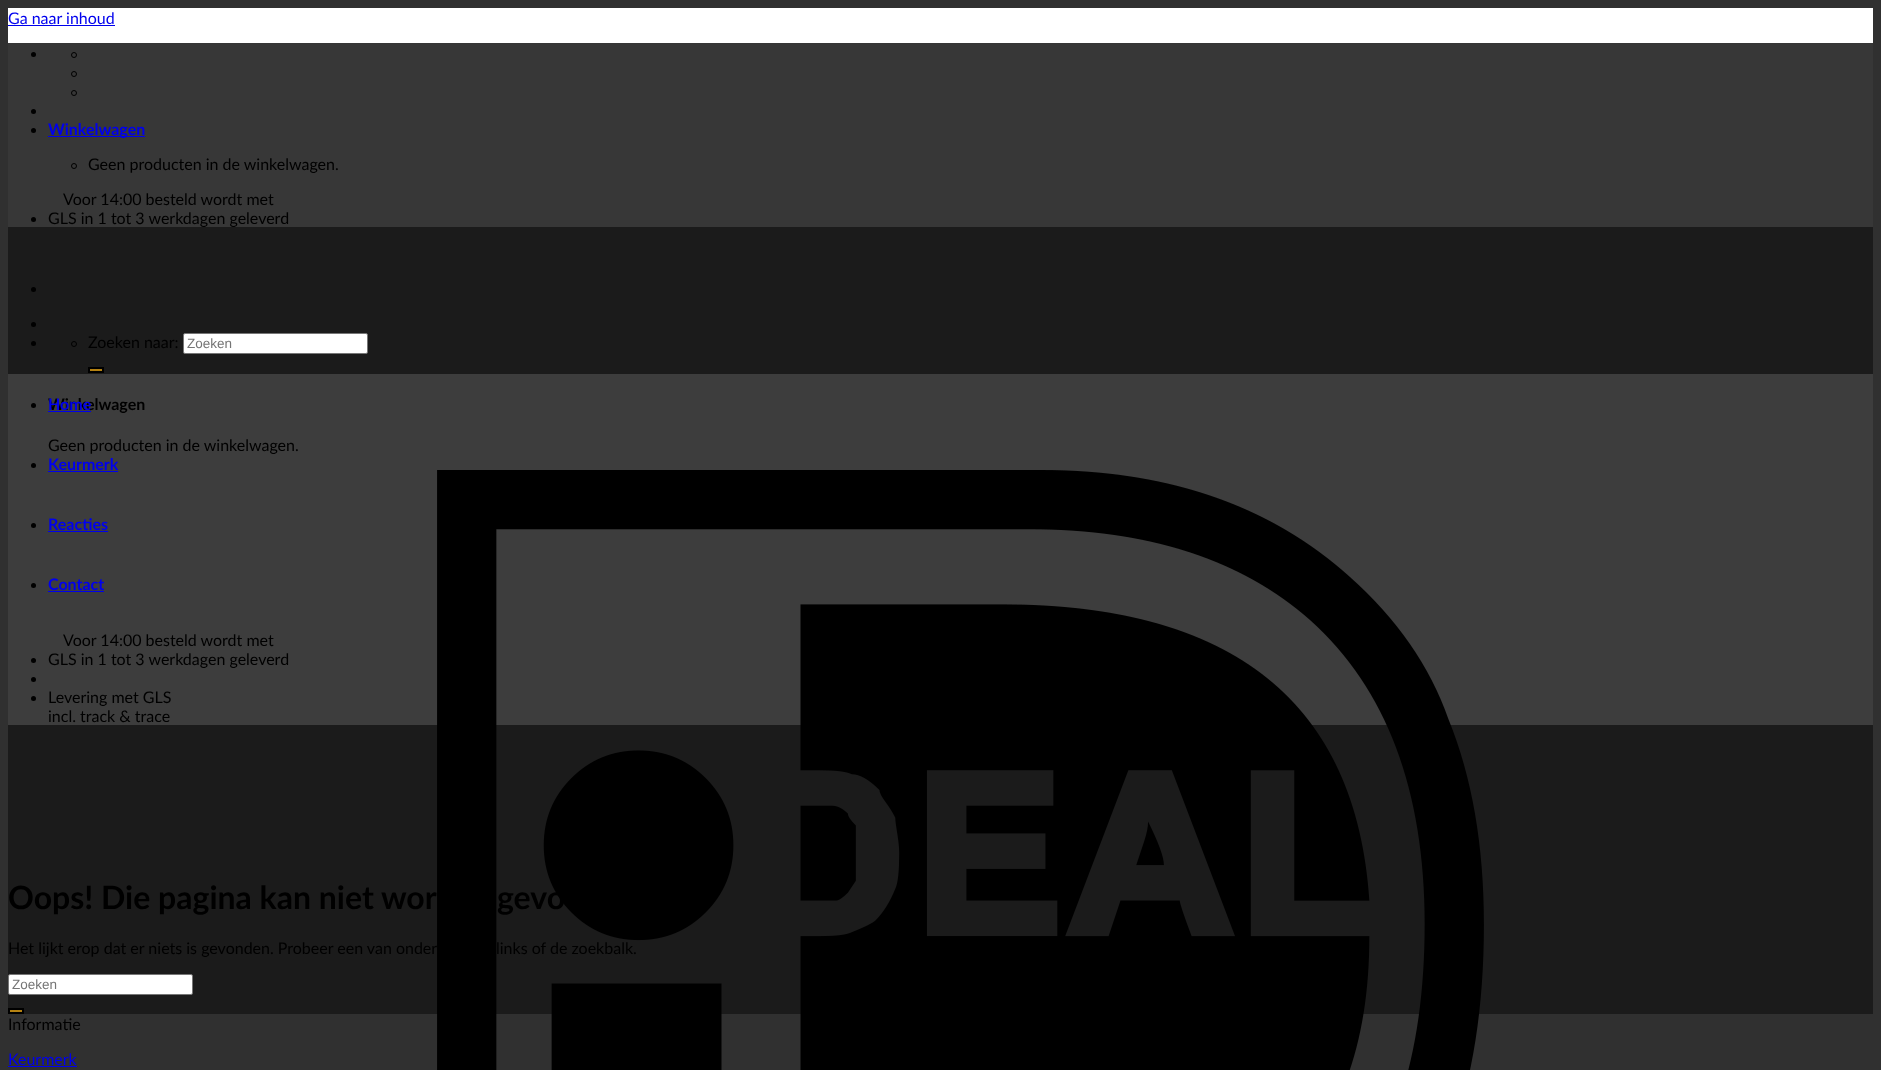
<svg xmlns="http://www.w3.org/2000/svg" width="1881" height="1070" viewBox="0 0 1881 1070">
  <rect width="100%" height="100%" fill="#303030"/>
  <rect x="8" y="8" width="1865" height="35" fill="#ffffff"/>
  <text x="8" y="24" font-family="Lato" font-size="16" fill="#0000ee">Ga naar inhoud</text>
  <rect x="8" y="25" width="107" height="1" fill="#0000ee"/>
  <rect x="8" y="227" width="1865" height="787" fill="#1b1b1b"/>
  <rect x="8" y="43" width="1865" height="184" fill="#373737"/>
  <circle cx="33.5" cy="54.5" r="2.5" fill="#000000"/>
  <circle cx="74" cy="55" r="2.5" fill="none" stroke="#000000"/>
  <circle cx="74" cy="74" r="2.5" fill="none" stroke="#000000"/>
  <circle cx="74" cy="93" r="2.5" fill="none" stroke="#000000"/>
  <circle cx="33.5" cy="111.5" r="2.5" fill="#000000"/>
  <circle cx="33.5" cy="130.5" r="2.5" fill="#000000"/>
  <rect x="48" y="136" width="97" height="1" fill="#0000ee"/>
  <text x="48" y="135" font-family="Lato" font-size="16" font-weight="bold" fill="#0000ee">Winkelwagen</text>
  <circle cx="74" cy="166" r="2.5" fill="none" stroke="#000000"/>
  <text x="88" y="170" font-family="Lato" font-size="16" fill="#000000">Geen producten in de winkelwagen.</text>
  <circle cx="33.5" cy="219.5" r="2.5" fill="#000000"/>
  <text x="63" y="205" font-family="Lato" font-size="16" fill="#000000">Voor 14:00 besteld wordt met</text>
  <text x="48" y="224" font-family="Lato" font-size="16" fill="#000000">GLS in 1 tot 3 werkdagen geleverd</text>
  <circle cx="33.5" cy="289.5" r="2.5" fill="#000000"/>
  <circle cx="33.5" cy="324.5" r="2.5" fill="#000000"/>
  <circle cx="33.5" cy="343.5" r="2.5" fill="#000000"/>
  <circle cx="74" cy="344" r="2.5" fill="none" stroke="#000000"/>
  <text x="88" y="348" font-family="Lato" font-size="16" fill="#000000">Zoeken naar:</text>
  <rect x="183.5" y="333.5" width="184" height="20" rx="1.5" fill="#ffffff" stroke="#767676"/>
  <text x="187" y="348" font-family="Liberation Sans" font-size="13.5" fill="#757575">Zoeken</text>
  <rect x="89" y="368" width="14" height="4" fill="#b58212" stroke="#000000" stroke-width="2"/>
  <rect x="8" y="374" width="1865" height="351" fill="#3d3d3d"/>
  <text x="48" y="410" font-family="Lato" font-size="16" font-weight="bold" fill="#000000">Winkelwagen</text>
  <text x="48" y="451" font-family="Lato" font-size="16" fill="#000000">Geen producten in de winkelwagen.</text>
  <text x="497" y="909" font-family="Lato" font-size="32" font-weight="bold" fill="#000000">gevo</text>
  <text x="496" y="954" font-family="Lato" font-size="16" fill="#000000">links of de zoekbalk.</text>
  <image x="437" y="470" width="1047" height="600" href="img1.png"/>
  <circle cx="33.5" cy="405.5" r="2.5" fill="#000000"/>
  <text x="48" y="410" font-family="Lato" font-size="16" font-weight="bold" fill="#0000ee">Home</text>
  <rect x="48" y="411" width="43" height="1" fill="#0000ee"/>
  <circle cx="33.5" cy="465.5" r="2.5" fill="#000000"/>
  <text x="48" y="470" font-family="Lato" font-size="16" font-weight="bold" fill="#0000ee">Keurmerk</text>
  <rect x="48" y="471" width="70" height="1" fill="#0000ee"/>
  <circle cx="33.5" cy="525.5" r="2.5" fill="#000000"/>
  <text x="48" y="530" font-family="Lato" font-size="16" font-weight="bold" fill="#0000ee">Reacties</text>
  <rect x="48" y="531" width="60" height="1" fill="#0000ee"/>
  <circle cx="33.5" cy="585.5" r="2.5" fill="#000000"/>
  <text x="48" y="590" font-family="Lato" font-size="16" font-weight="bold" fill="#0000ee">Contact</text>
  <rect x="48" y="591" width="56" height="1" fill="#0000ee"/>
  <circle cx="33.5" cy="660.5" r="2.5" fill="#000000"/>
  <text x="63" y="646" font-family="Lato" font-size="16" fill="#000000">Voor 14:00 besteld wordt met</text>
  <text x="48" y="665" font-family="Lato" font-size="16" fill="#000000">GLS in 1 tot 3 werkdagen geleverd</text>
  <circle cx="33.5" cy="679.5" r="2.5" fill="#000000"/>
  <circle cx="33.5" cy="698.5" r="2.5" fill="#000000"/>
  <text x="48" y="703" font-family="Lato" font-size="16" fill="#000000">Levering met GLS</text>
  <text x="48" y="722" font-family="Lato" font-size="16" fill="#000000">incl. track &amp; trace</text>
  <text x="8" y="909" font-family="Lato" font-size="32" font-weight="bold" fill="#000000">Oops! Die pagina kan niet wor</text>
  <text x="8" y="954" font-family="Lato" font-size="16" fill="#000000">Het lijkt erop dat er niets is gevonden. Probeer een van onder</text>
  <rect x="8.5" y="974.5" width="184" height="20" rx="1.5" fill="#ffffff" stroke="#767676"/>
  <text x="12" y="989" font-family="Liberation Sans" font-size="13.5" fill="#757575">Zoeken</text>
  <rect x="9" y="1009" width="14" height="4" fill="#b58212" stroke="#000000" stroke-width="2"/>
  <text x="8" y="1030" font-family="Lato" font-size="16" fill="#000000">Informatie</text>
  <text x="8" y="1065" font-family="Lato" font-size="16" fill="#0000ee">Keurmerk</text>
  <rect x="8" y="1066" width="69" height="1" fill="#0000ee"/>
</svg>
